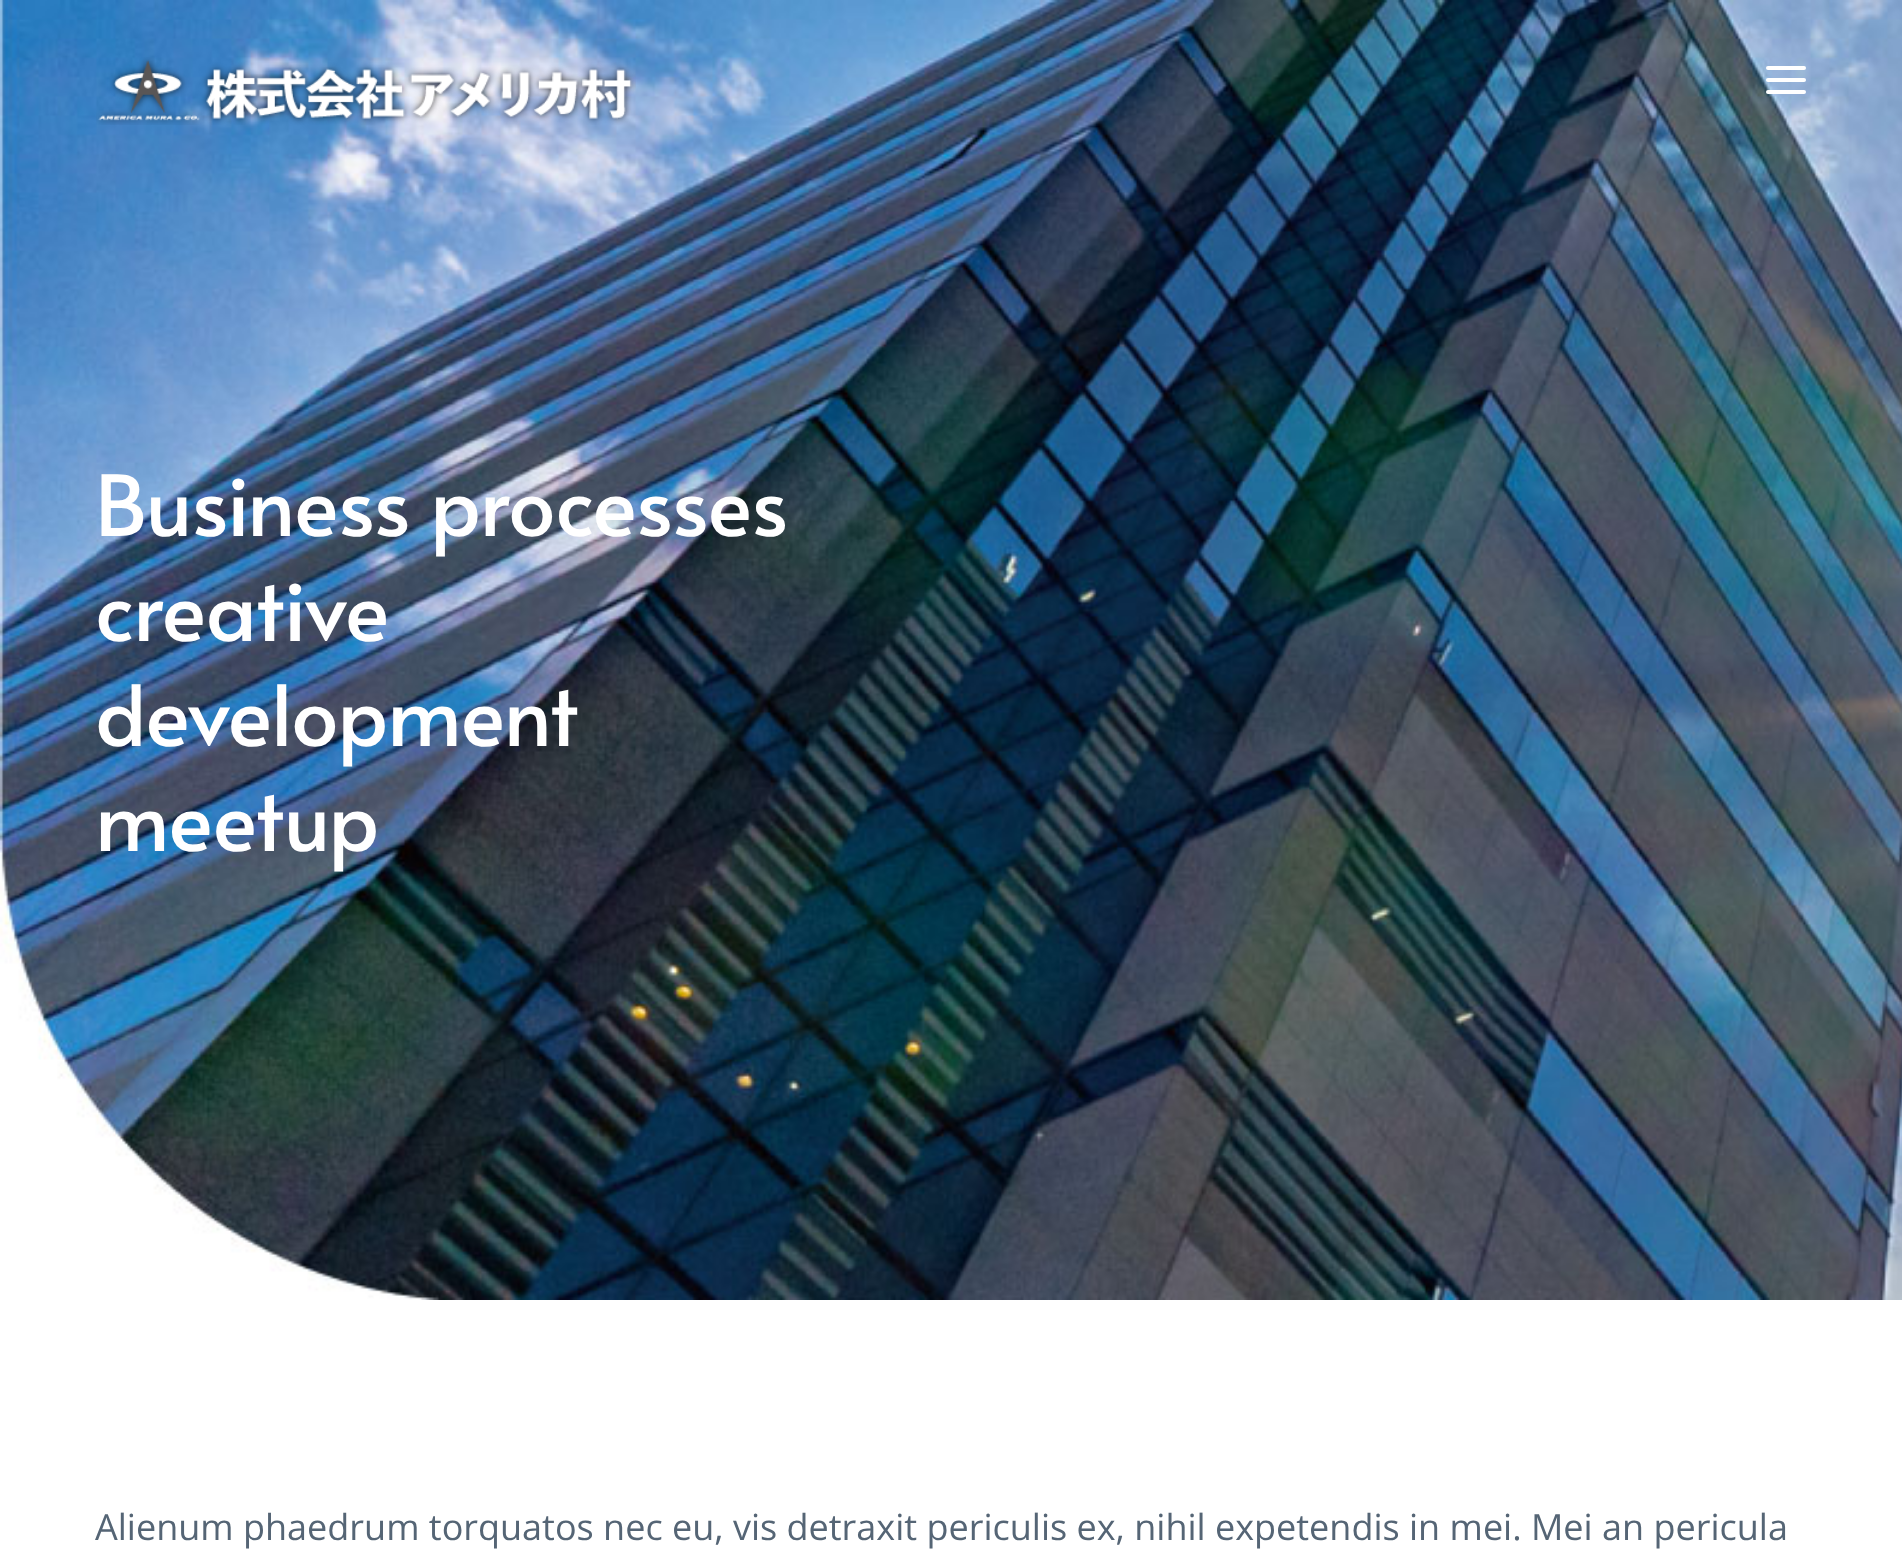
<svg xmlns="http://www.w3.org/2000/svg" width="1902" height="1565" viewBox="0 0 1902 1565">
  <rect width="100%" height="100%" fill="#ffffff"/>
  <image x="0" y="0" width="1902" height="1300" href="img2.png"/>
  <image x="96" y="57" width="540" height="68" href="img1.png"/>
  <rect x="1766" y="66" width="40" height="4" rx="2" fill="#ffffff"/>
  <rect x="1766" y="78" width="40" height="4" rx="2" fill="#ffffff"/>
  <rect x="1766" y="90" width="40" height="4" rx="2" fill="#ffffff"/>
  <text x="95" y="536" font-family="Alata" font-size="84" letter-spacing="-0.6" fill="#ffffff">Business processes</text>
  <text x="95" y="641" font-family="Alata" font-size="84" letter-spacing="-0.6" fill="#ffffff">creative</text>
  <text x="95" y="746" font-family="Alata" font-size="84" letter-spacing="-0.6" fill="#ffffff">development</text>
  <text x="95" y="851" font-family="Alata" font-size="84" letter-spacing="-0.6" fill="#ffffff">meetup</text>
  <text x="95" y="1540" font-family="Open Sans" font-size="36" fill="#556575">Alienum phaedrum torquatos nec eu, vis detraxit periculis ex, nihil expetendis in mei. Mei an pericula</text>
</svg>
